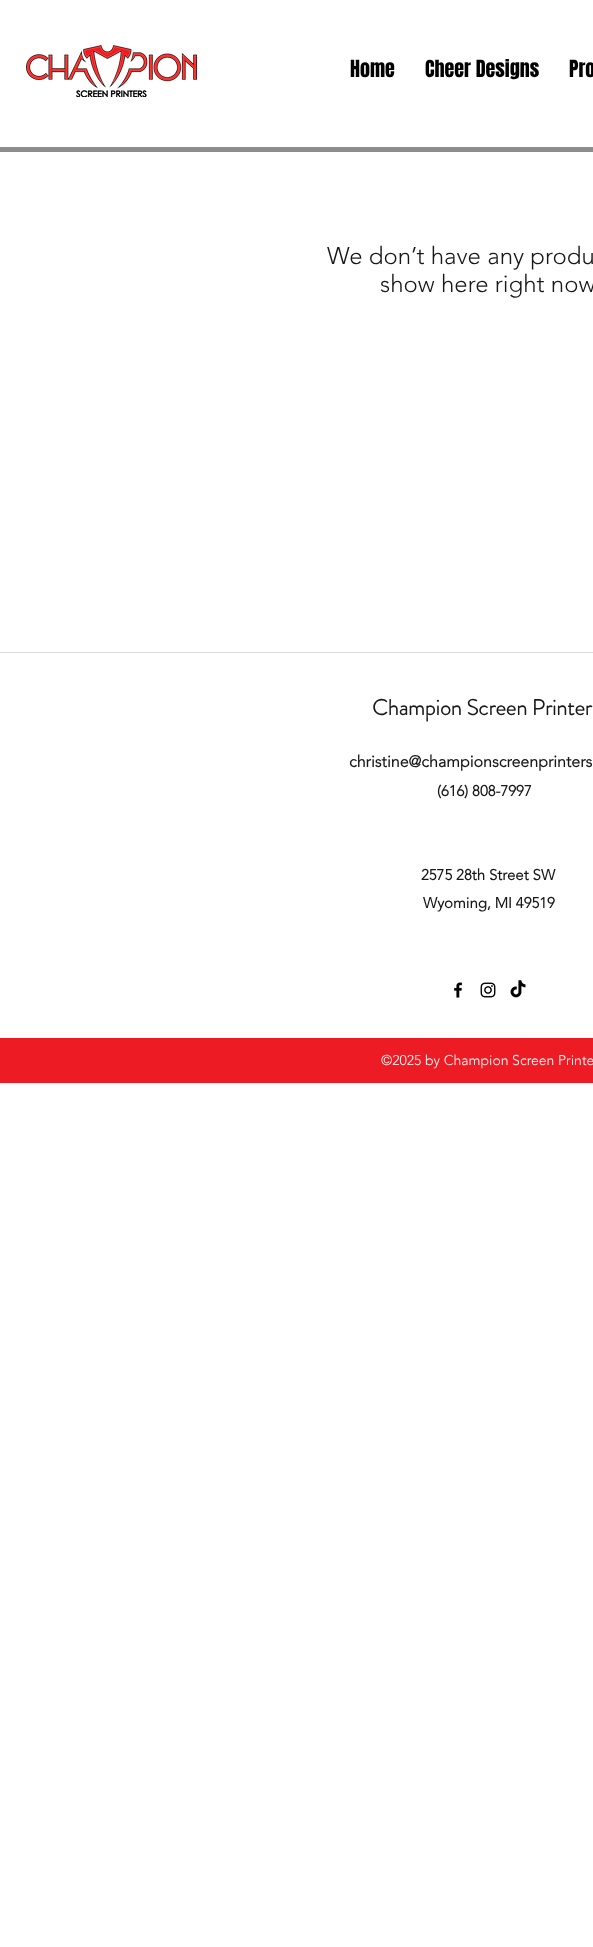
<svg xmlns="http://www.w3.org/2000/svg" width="593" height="1947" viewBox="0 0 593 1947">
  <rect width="100%" height="100%" fill="#ffffff"/>
  <image x="26" y="45" width="171" height="52" href="img1.png"/>
  <text x="350" y="77" font-family="Anton" font-size="20" fill="#000000">Home</text>
  <text x="425" y="77" font-family="Anton" font-size="20" fill="#000000">Cheer Designs</text>
  <text x="569" y="77" font-family="Anton" font-size="20" fill="#000000">Pro</text>
  <rect x="0" y="147" width="593" height="5" fill="#8c8c8c"/>
  <text x="327" y="264" font-family="'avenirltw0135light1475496'" font-size="24" font-weight="300" fill="#181818">We don’t have any produ</text>
  <text x="380" y="292" font-family="'avenirltw0135light1475496'" font-size="24" font-weight="300" fill="#181818">show here right now</text>
  <rect x="0" y="652" width="593" height="1" fill="#dcdcdc"/>
  <text x="372" y="715" font-family="'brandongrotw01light'" font-size="22" font-weight="bold" fill="#181818">Champion Screen Printer</text>
  <text x="349" y="767" font-family="'avenirltw0135light1475496'" font-size="16" font-weight="bold" fill="#181818">christine@championscreenprinters</text>
  <text x="437" y="796" font-family="'avenirltw0135light1475496'" font-size="15" font-weight="bold" fill="#181818">(616) 808-7997</text>
  <text x="421" y="880" font-family="'avenirltw0135light1475496'" font-size="15" font-weight="bold" fill="#181818">2575 28th Street SW</text>
  <text x="423" y="908" font-family="'avenirltw0135light1475496'" font-size="15" font-weight="bold" fill="#181818">Wyoming, MI 49519</text>
  <image x="454" y="982" width="9" height="16" href="img2.png"/>
  <image x="480" y="982" width="16" height="16" href="img3.png"/>
  <image x="510" y="980" width="16" height="18" href="img4.png"/>
  <rect x="0" y="1038" width="593" height="45" fill="#ed1c24"/>
  <text x="381" y="1065" font-family="'avenirltw0135light1475496'" font-size="14" font-weight="300" fill="#ffffff">©2025 by Champion Screen Printe</text>
</svg>
